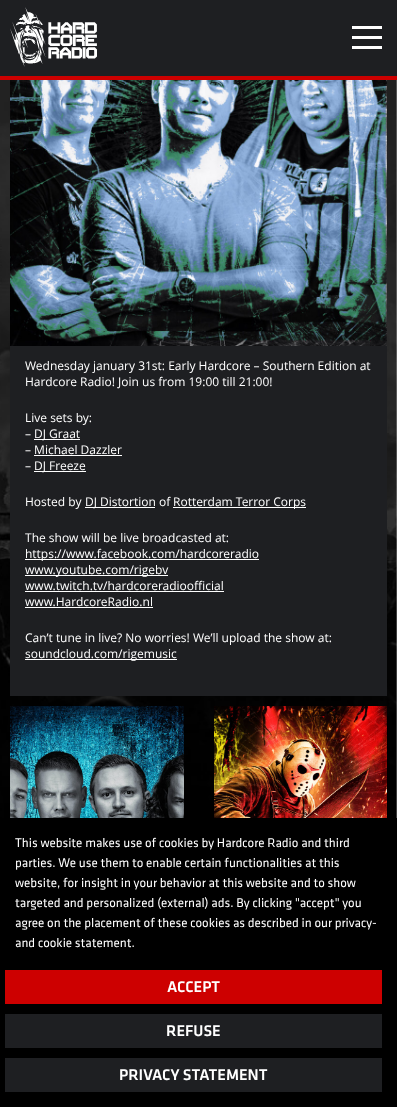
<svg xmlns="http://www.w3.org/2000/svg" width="397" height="1107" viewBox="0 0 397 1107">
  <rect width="100%" height="100%" fill="#ffffff"/>
  <image x="0" y="80" width="397" height="738" href="img1.png"/>
  <rect x="0" y="0" width="397" height="76" fill="#1e1f22"/>
  <rect x="0" y="76" width="397" height="4" fill="#cd0000"/>
  <image x="10" y="7" width="87" height="60" href="img2.png"/>
  <rect x="352" y="26" width="30" height="3" fill="#ffffff"/>
  <rect x="352" y="36" width="30" height="3" fill="#ffffff"/>
  <rect x="352" y="46" width="30" height="3" fill="#ffffff"/>
  <image x="10" y="80" width="377" height="266" href="img3.png"/>
  <rect x="10" y="346" width="377" height="350" fill="#1e1f22"/>
  <text x="25" y="370" font-family="Open Sans" font-size="12" fill="#ffffff">Wednesday january 31st: Early Hardcore – Southern Edition at</text>
  <text x="25" y="386" font-family="Open Sans" font-size="12" fill="#ffffff">Hardcore Radio! Join us from 19:00 till 21:00!</text>
  <text x="25" y="422" font-family="Open Sans" font-size="12" fill="#ffffff">Live sets by:</text>
  <text x="25" y="438" font-family="Open Sans" font-size="12" fill="#ffffff">–</text>
  <rect x="34" y="439" width="46" height="1" fill="#ffffff"/>
  <text x="34" y="438" font-family="Open Sans" font-size="12" fill="#ffffff">DJ Graat</text>
  <text x="25" y="454" font-family="Open Sans" font-size="12" fill="#ffffff">– Michael Dazzler</text>
  <rect x="34" y="455" width="88" height="1" fill="#ffffff"/>
  <text x="25" y="470" font-family="Open Sans" font-size="12" fill="#ffffff">–</text>
  <rect x="34" y="471" width="52" height="1" fill="#ffffff"/>
  <text x="34" y="470" font-family="Open Sans" font-size="12" fill="#ffffff">DJ Freeze</text>
  <text x="25" y="506" font-family="Open Sans" font-size="12" fill="#ffffff">Hosted by</text>
  <rect x="85" y="507" width="70" height="1" fill="#ffffff"/>
  <text x="85" y="506" font-family="Open Sans" font-size="12" fill="#ffffff">DJ Distortion of</text>
  <rect x="173" y="507" width="133" height="1" fill="#ffffff"/>
  <text x="173" y="506" font-family="Open Sans" font-size="12" fill="#ffffff">Rotterdam Terror Corps</text>
  <text x="25" y="542" font-family="Open Sans" font-size="12" fill="#ffffff">The show will be live broadcasted at:</text>
  <rect x="25" y="559" width="234" height="1" fill="#ffffff"/>
  <text x="25" y="558" font-family="Open Sans" font-size="12" fill="#ffffff">https://www.facebook.com/hardcoreradio</text>
  <rect x="25" y="575" width="143" height="1" fill="#ffffff"/>
  <text x="25" y="574" font-family="Open Sans" font-size="12" fill="#ffffff">www.youtube.com/rigebv</text>
  <text x="25" y="590" font-family="Open Sans" font-size="12" fill="#ffffff">www.twitch.tv/hardcoreradioofficial</text>
  <rect x="25" y="591" width="199" height="1" fill="#ffffff"/>
  <text x="25" y="606" font-family="Open Sans" font-size="12" fill="#ffffff">www.HardcoreRadio.nl</text>
  <rect x="25" y="607" width="128" height="1" fill="#ffffff"/>
  <text x="25" y="642" font-family="Open Sans" font-size="12" fill="#ffffff">Can’t tune in live? No worries! We’ll upload the show at:</text>
  <rect x="25" y="659" width="152" height="1" fill="#ffffff"/>
  <text x="25" y="658" font-family="Open Sans" font-size="12" fill="#ffffff">soundcloud.com/rigemusic</text>
  <image x="10" y="706" width="174" height="112" href="img4.png"/>
  <image x="214" y="706" width="173" height="112" href="img5.png"/>
  <rect x="0" y="818" width="397" height="289" fill="#000000"/>
  <text x="15" y="847" font-family="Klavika" font-size="13" fill="#ffffff">This website makes use of cookies by Hardcore Radio and third</text>
  <text x="15" y="867" font-family="Klavika" font-size="13" fill="#ffffff">parties. We use them to enable certain functionalities at this</text>
  <text x="15" y="887" font-family="Klavika" font-size="13" fill="#ffffff">website, for insight in your behavior at this website and to show</text>
  <text x="15" y="907" font-family="Klavika" font-size="13" fill="#ffffff">targeted and personalized (external) ads. By clicking "accept" you</text>
  <text x="15" y="927" font-family="Klavika" font-size="13" fill="#ffffff">agree on the placement of these cookies as described in our privacy-</text>
  <text x="15" y="947" font-family="Klavika" font-size="13" fill="#ffffff">and cookie statement.</text>
  <rect x="5" y="970" width="377" height="34" fill="#cd0000"/>
  <text x="167" y="992" font-family="Klavika" font-size="16" font-weight="500" fill="#ffffff">ACCEPT</text>
  <rect x="5" y="1014" width="377" height="34" fill="#1e1f22"/>
  <text x="166" y="1036" font-family="Klavika" font-size="16" font-weight="500" fill="#ffffff">REFUSE</text>
  <rect x="5" y="1058" width="377" height="34" fill="#1e1f22"/>
  <text x="119" y="1080" font-family="Klavika" font-size="16" font-weight="500" fill="#ffffff">PRIVACY STATEMENT</text>
</svg>
